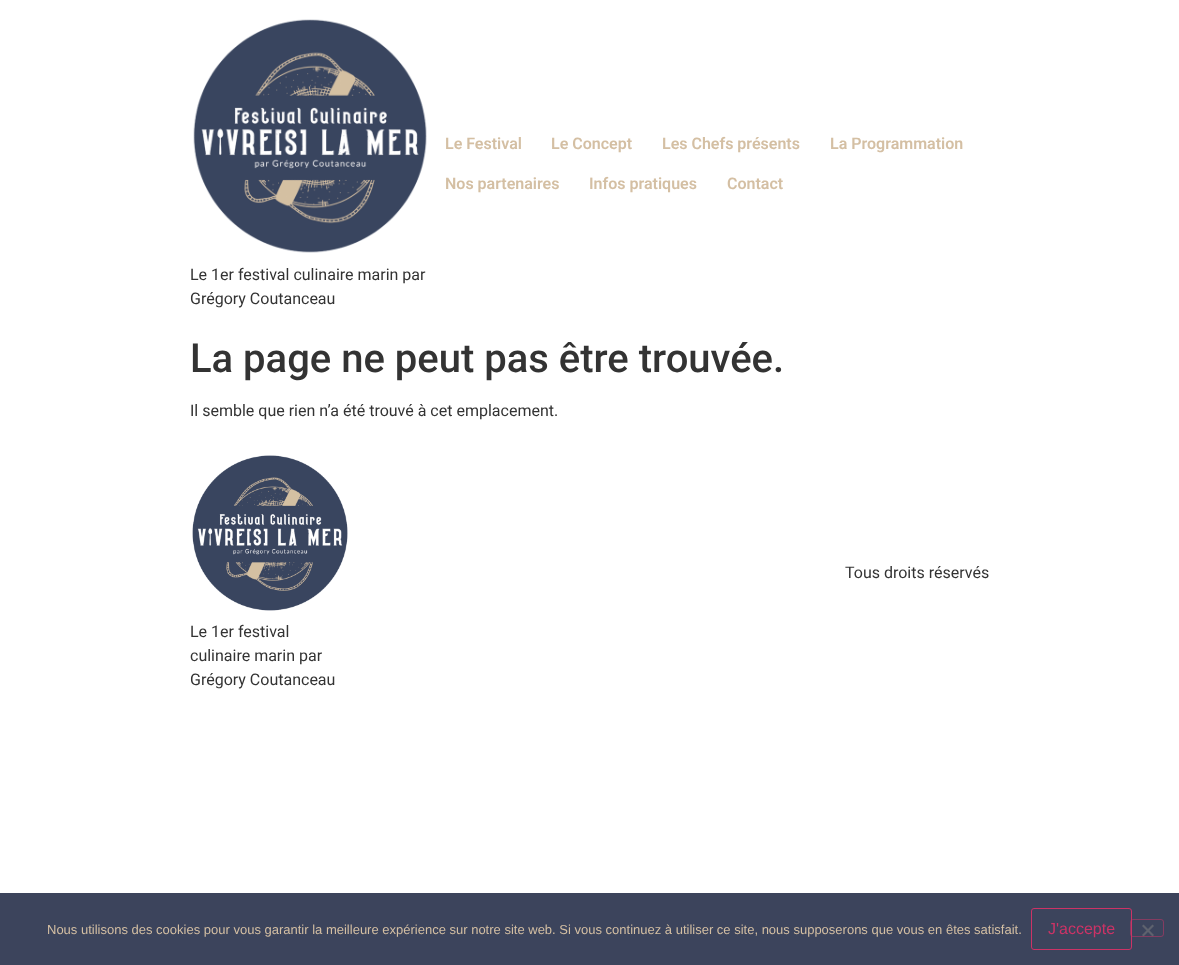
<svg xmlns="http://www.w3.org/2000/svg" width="1179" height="965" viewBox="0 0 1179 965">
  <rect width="100%" height="100%" fill="#ffffff"/>
  <text x="445" y="149" font-family="Roboto" font-size="16" font-weight="600" fill="#d4bfa3">Le Festival</text>
  <text x="551" y="149" font-family="Roboto" font-size="16" font-weight="600" fill="#d4bfa3">Le Concept</text>
  <text x="662" y="149" font-family="Roboto" font-size="16" font-weight="600" fill="#d4bfa3">Les Chefs présents</text>
  <text x="830" y="149" font-family="Roboto" font-size="16" font-weight="600" fill="#d4bfa3">La Programmation</text>
  <text x="445" y="189" font-family="Roboto" font-size="16" font-weight="600" fill="#d4bfa3">Nos partenaires</text>
  <text x="589" y="189" font-family="Roboto" font-size="16" font-weight="600" fill="#d4bfa3">Infos pratiques</text>
  <text x="727" y="189" font-family="Roboto" font-size="16" font-weight="600" fill="#d4bfa3">Contact</text>
  <image x="193" y="19" width="234" height="234" href="img1.png"/>
  <text x="190" y="280" font-family="Roboto" font-size="16" fill="#333333">Le 1er festival culinaire marin par</text>
  <text x="190" y="304" font-family="Roboto" font-size="16" fill="#333333">Grégory Coutanceau</text>
  <text x="190" y="372" font-family="Roboto" font-size="40" font-weight="500" fill="#333333">La page ne peut pas être trouvée.</text>
  <text x="190" y="416" font-family="Roboto" font-size="16" fill="#333333">Il semble que rien n’a été trouvé à cet emplacement.</text>
  <text x="845" y="578" font-family="Roboto" font-size="16" fill="#333333">Tous droits réservés</text>
  <image x="192" y="455" width="156" height="156" href="img2.png"/>
  <text x="190" y="637" font-family="Roboto" font-size="16" fill="#333333">Le 1er festival</text>
  <text x="190" y="661" font-family="Roboto" font-size="16" fill="#333333">culinaire marin par</text>
  <text x="190" y="685" font-family="Roboto" font-size="16" fill="#333333">Grégory Coutanceau</text>
  <rect x="0" y="893" width="1179" height="72" fill="#3c445c"/>
  <text x="47" y="934" font-family="Liberation Sans" font-size="13" fill="#d4bfa3">Nous utilisons des cookies pour vous garantir la meilleure expérience sur notre site web. Si vous continuez à utiliser ce site, nous supposerons que vous en êtes satisfait.</text>
  <rect x="1031.5" y="908.5" width="100" height="41" rx="2.5" fill="none" stroke="#cc3366"/>
  <text x="1048" y="934" font-family="Liberation Sans" font-size="16" fill="#cc3366">J'accepte</text>
  <rect x="1130.5" y="919.5" width="33" height="17" rx="2.5" fill="none" stroke="#cc3366" stroke-opacity="0.5"/>
  <path d="M1152.5 924.5L1154 926L1143.5 936.5L1142 935Z" fill="#5e626e"/>
  <path d="M1142 926L1143.5 924.5L1154 935L1152.5 936.5Z" fill="#5e626e"/>
</svg>
